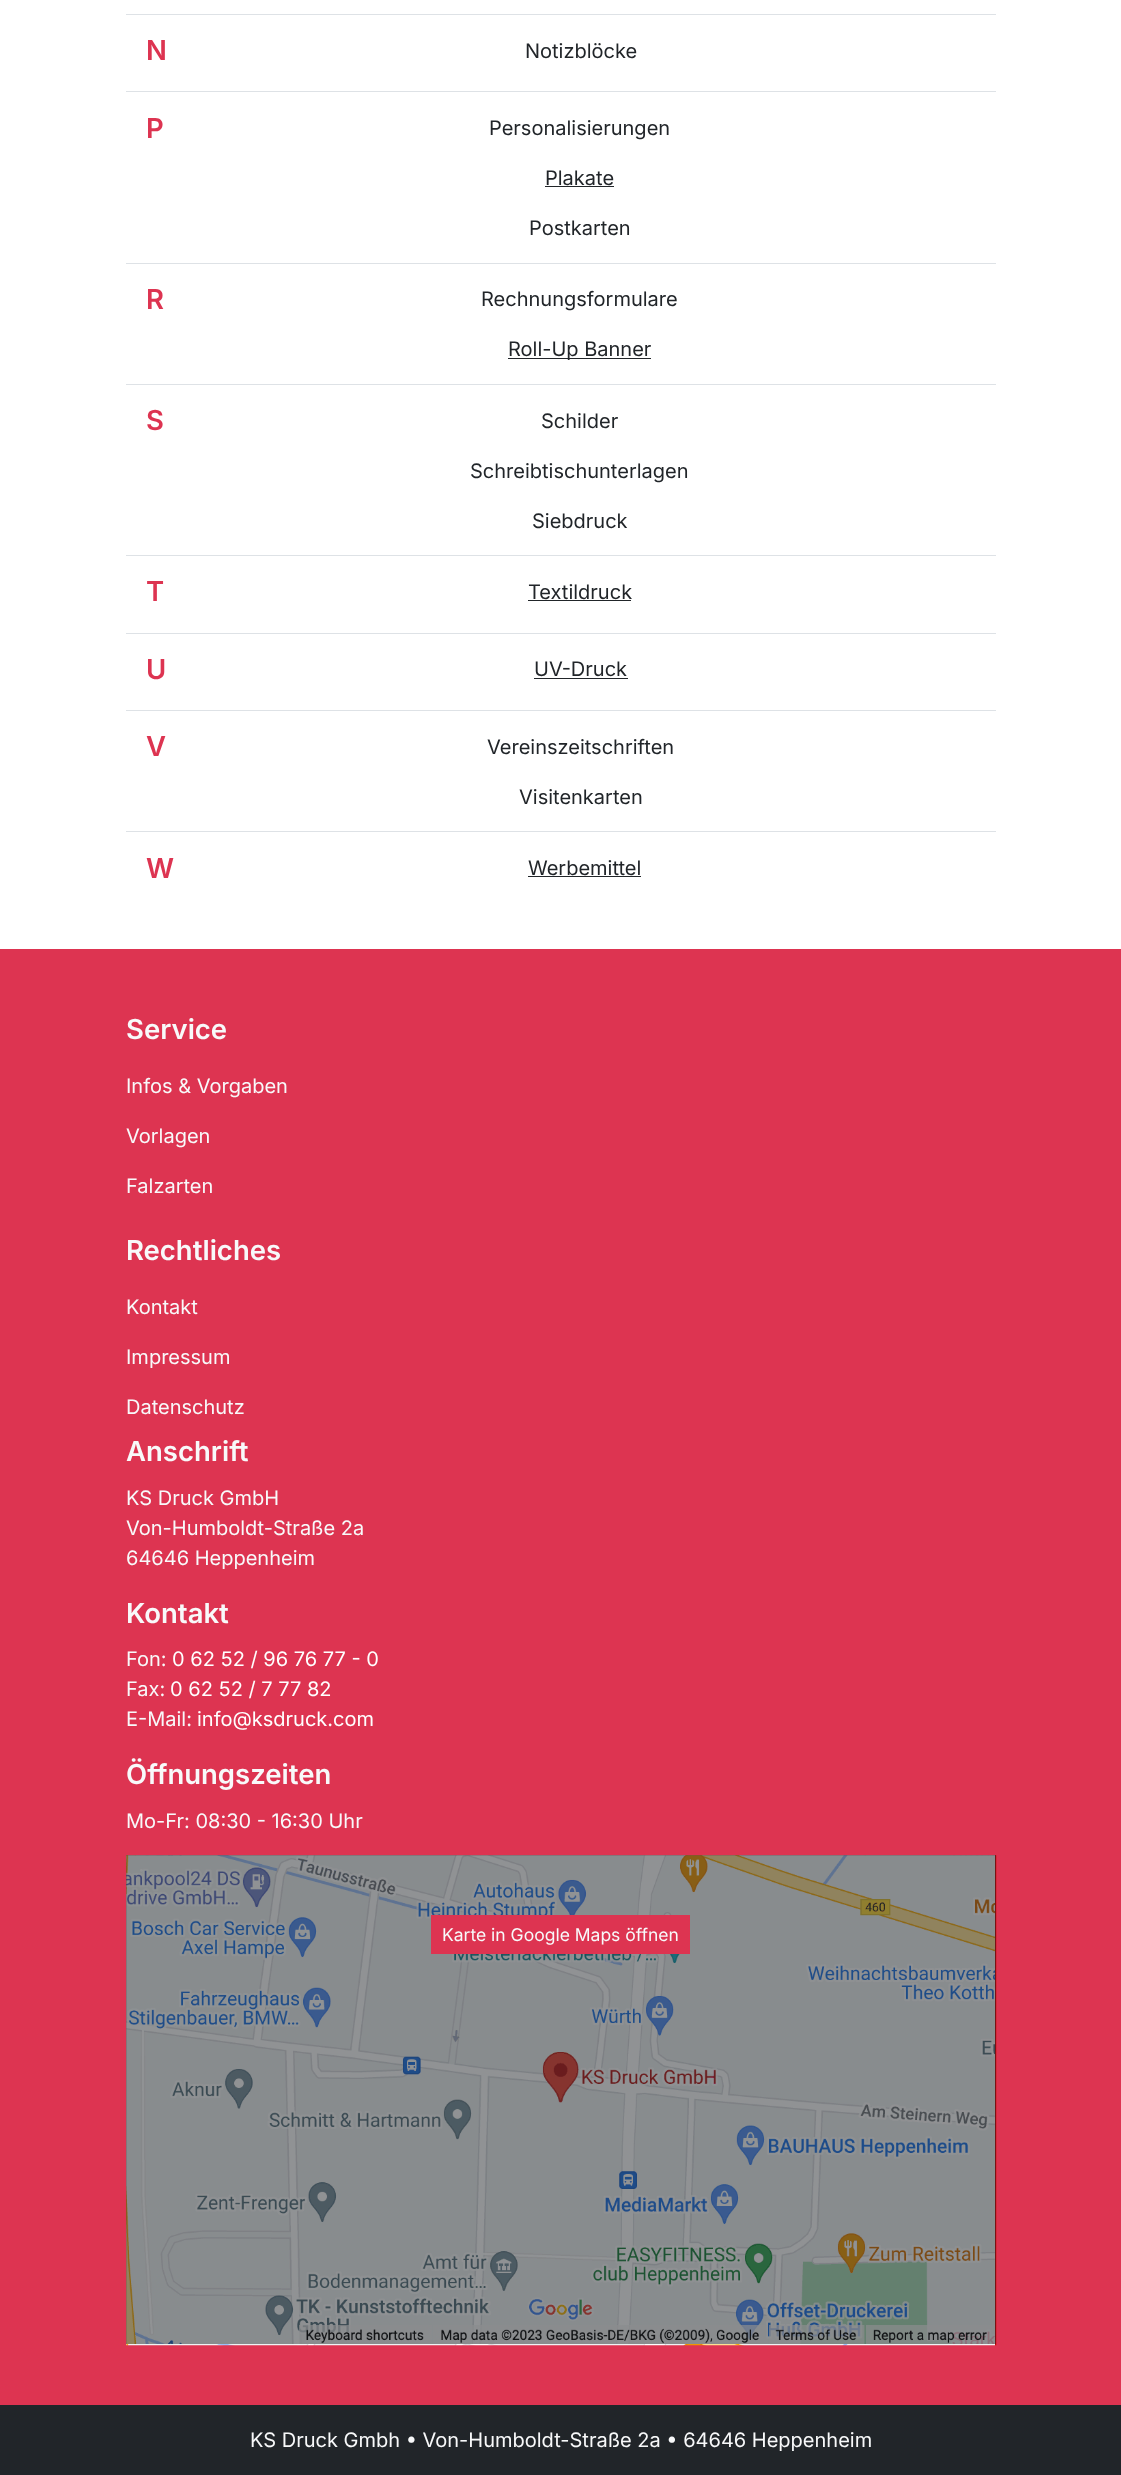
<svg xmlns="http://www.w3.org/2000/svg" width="1121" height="2475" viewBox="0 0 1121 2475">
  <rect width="100%" height="100%" fill="#ffffff"/>
  <rect x="126" y="14" width="870" height="1" fill="#dee2e6"/>
  <rect x="126" y="91" width="870" height="1" fill="#dee2e6"/>
  <text x="146" y="60" font-family="Inter" font-size="27.5" font-weight="600" fill="#dd3451">N</text>
  <text x="525" y="58" font-family="Inter" font-size="20" fill="#212529">Notizblöcke</text>
  <rect x="126" y="263" width="870" height="1" fill="#dee2e6"/>
  <text x="146" y="138" font-family="Inter" font-size="27.5" font-weight="600" fill="#dd3451">P</text>
  <text x="489" y="135" font-family="Inter" font-size="20" fill="#212529">Personalisierungen</text>
  <text x="545" y="185" font-family="Inter" font-size="20" fill="#212529">Plakate</text>
  <rect x="545" y="186" width="69" height="1" fill="#212529"/>
  <text x="529" y="235" font-family="Inter" font-size="20" fill="#212529">Postkarten</text>
  <rect x="126" y="384" width="870" height="1" fill="#dee2e6"/>
  <text x="146" y="309" font-family="Inter" font-size="27.5" font-weight="600" fill="#dd3451">R</text>
  <text x="481" y="306" font-family="Inter" font-size="20" fill="#212529">Rechnungsformulare</text>
  <rect x="508" y="358" width="143" height="1" fill="#212529"/>
  <text x="508" y="356" font-family="Inter" font-size="20" fill="#212529">Roll-Up Banner</text>
  <rect x="126" y="555" width="870" height="1" fill="#dee2e6"/>
  <text x="146" y="430" font-family="Inter" font-size="27.5" font-weight="600" fill="#dd3451">S</text>
  <text x="541" y="428" font-family="Inter" font-size="20" fill="#212529">Schilder</text>
  <text x="470" y="478" font-family="Inter" font-size="20" fill="#212529">Schreibtischunterlagen</text>
  <text x="532" y="528" font-family="Inter" font-size="20" fill="#212529">Siebdruck</text>
  <rect x="126" y="633" width="870" height="1" fill="#dee2e6"/>
  <text x="146" y="601" font-family="Inter" font-size="27.5" font-weight="600" fill="#dd3451">T</text>
  <text x="528" y="599" font-family="Inter" font-size="20" fill="#212529">Textildruck</text>
  <rect x="528" y="600" width="103" height="1" fill="#212529"/>
  <rect x="126" y="710" width="870" height="1" fill="#dee2e6"/>
  <text x="146" y="679" font-family="Inter" font-size="27.5" font-weight="600" fill="#dd3451">U</text>
  <text x="534" y="676" font-family="Inter" font-size="20" fill="#212529">UV-Druck</text>
  <rect x="534" y="678" width="94" height="1" fill="#212529"/>
  <rect x="126" y="831" width="870" height="1" fill="#dee2e6"/>
  <text x="146" y="756" font-family="Inter" font-size="27.5" font-weight="600" fill="#dd3451">V</text>
  <text x="487" y="754" font-family="Inter" font-size="20" fill="#212529">Vereinszeitschriften</text>
  <text x="519" y="804" font-family="Inter" font-size="20" fill="#212529">Visitenkarten</text>
  <text x="146" y="878" font-family="Inter" font-size="27.5" font-weight="600" fill="#dd3451">W</text>
  <text x="528" y="875" font-family="Inter" font-size="20" fill="#212529">Werbemittel</text>
  <rect x="528" y="876" width="113" height="1" fill="#212529"/>
  <rect x="0" y="949" width="1121" height="1456" fill="#dd3451"/>
  <rect x="126" y="1855" width="870" height="489" fill="#7f2d3d"/>
  <text x="126" y="1039" font-family="Inter" font-size="27.5" font-weight="600" fill="#f8f9fa">Service</text>
  <text x="126" y="1093" font-family="Inter" font-size="20" fill="#f8f9fa">Infos &amp; Vorgaben</text>
  <text x="126" y="1143" font-family="Inter" font-size="20" fill="#f8f9fa">Vorlagen</text>
  <text x="126" y="1193" font-family="Inter" font-size="20" fill="#f8f9fa">Falzarten</text>
  <text x="126" y="1260" font-family="Inter" font-size="27.5" font-weight="600" fill="#f8f9fa">Rechtliches</text>
  <text x="126" y="1314" font-family="Inter" font-size="20" fill="#f8f9fa">Kontakt</text>
  <text x="126" y="1364" font-family="Inter" font-size="20" fill="#f8f9fa">Impressum</text>
  <text x="126" y="1414" font-family="Inter" font-size="20" fill="#f8f9fa">Datenschutz</text>
  <text x="126" y="1461" font-family="Inter" font-size="27.5" font-weight="600" fill="#f8f9fa">Anschrift</text>
  <text x="126" y="1505" font-family="Inter" font-size="20" fill="#f8f9fa">KS Druck GmbH</text>
  <text x="126" y="1535" font-family="Inter" font-size="20" fill="#f8f9fa">Von-Humboldt-Straße 2a</text>
  <text x="126" y="1565" font-family="Inter" font-size="20" fill="#f8f9fa">64646 Heppenheim</text>
  <text x="126" y="1623" font-family="Inter" font-size="27.5" font-weight="600" fill="#f8f9fa">Kontakt</text>
  <text x="126" y="1666" font-family="Inter" font-size="20" fill="#f8f9fa">Fon:</text>
  <text x="172" y="1666" font-family="Inter" font-size="20" fill="#ffffff">0 62 52 / 96 76 77 - 0</text>
  <text x="126" y="1696" font-family="Inter" font-size="20" fill="#f8f9fa">Fax:</text>
  <text x="170" y="1696" font-family="Inter" font-size="20" fill="#ffffff">0 62 52 / 7 77 82</text>
  <text x="126" y="1726" font-family="Inter" font-size="20" fill="#f8f9fa">E-Mail:</text>
  <text x="197" y="1726" font-family="Inter" font-size="20" fill="#ffffff">info@ksdruck.com</text>
  <text x="126" y="1784" font-family="Inter" font-size="27.5" font-weight="600" fill="#f8f9fa">Öffnungszeiten</text>
  <text x="126" y="1828" font-family="Inter" font-size="20" fill="#f8f9fa">Mo-Fr: 08:30 - 16:30 Uhr</text>
  <image x="126" y="1855" width="871" height="491" href="img1.png"/>
  <rect x="431" y="1915" width="259" height="39" fill="#dd3451"/>
  <text x="442" y="1941" font-family="Inter" font-size="17.5" fill="#f8f9fa">Karte in Google Maps öffnen</text>
  <rect x="0" y="2405" width="1121" height="70" fill="#212529"/>
  <text x="250" y="2447" font-family="Inter" font-size="20" fill="#f8f9fa">KS Druck Gmbh • Von-Humboldt-Straße 2a • 64646 Heppenheim</text>
</svg>
